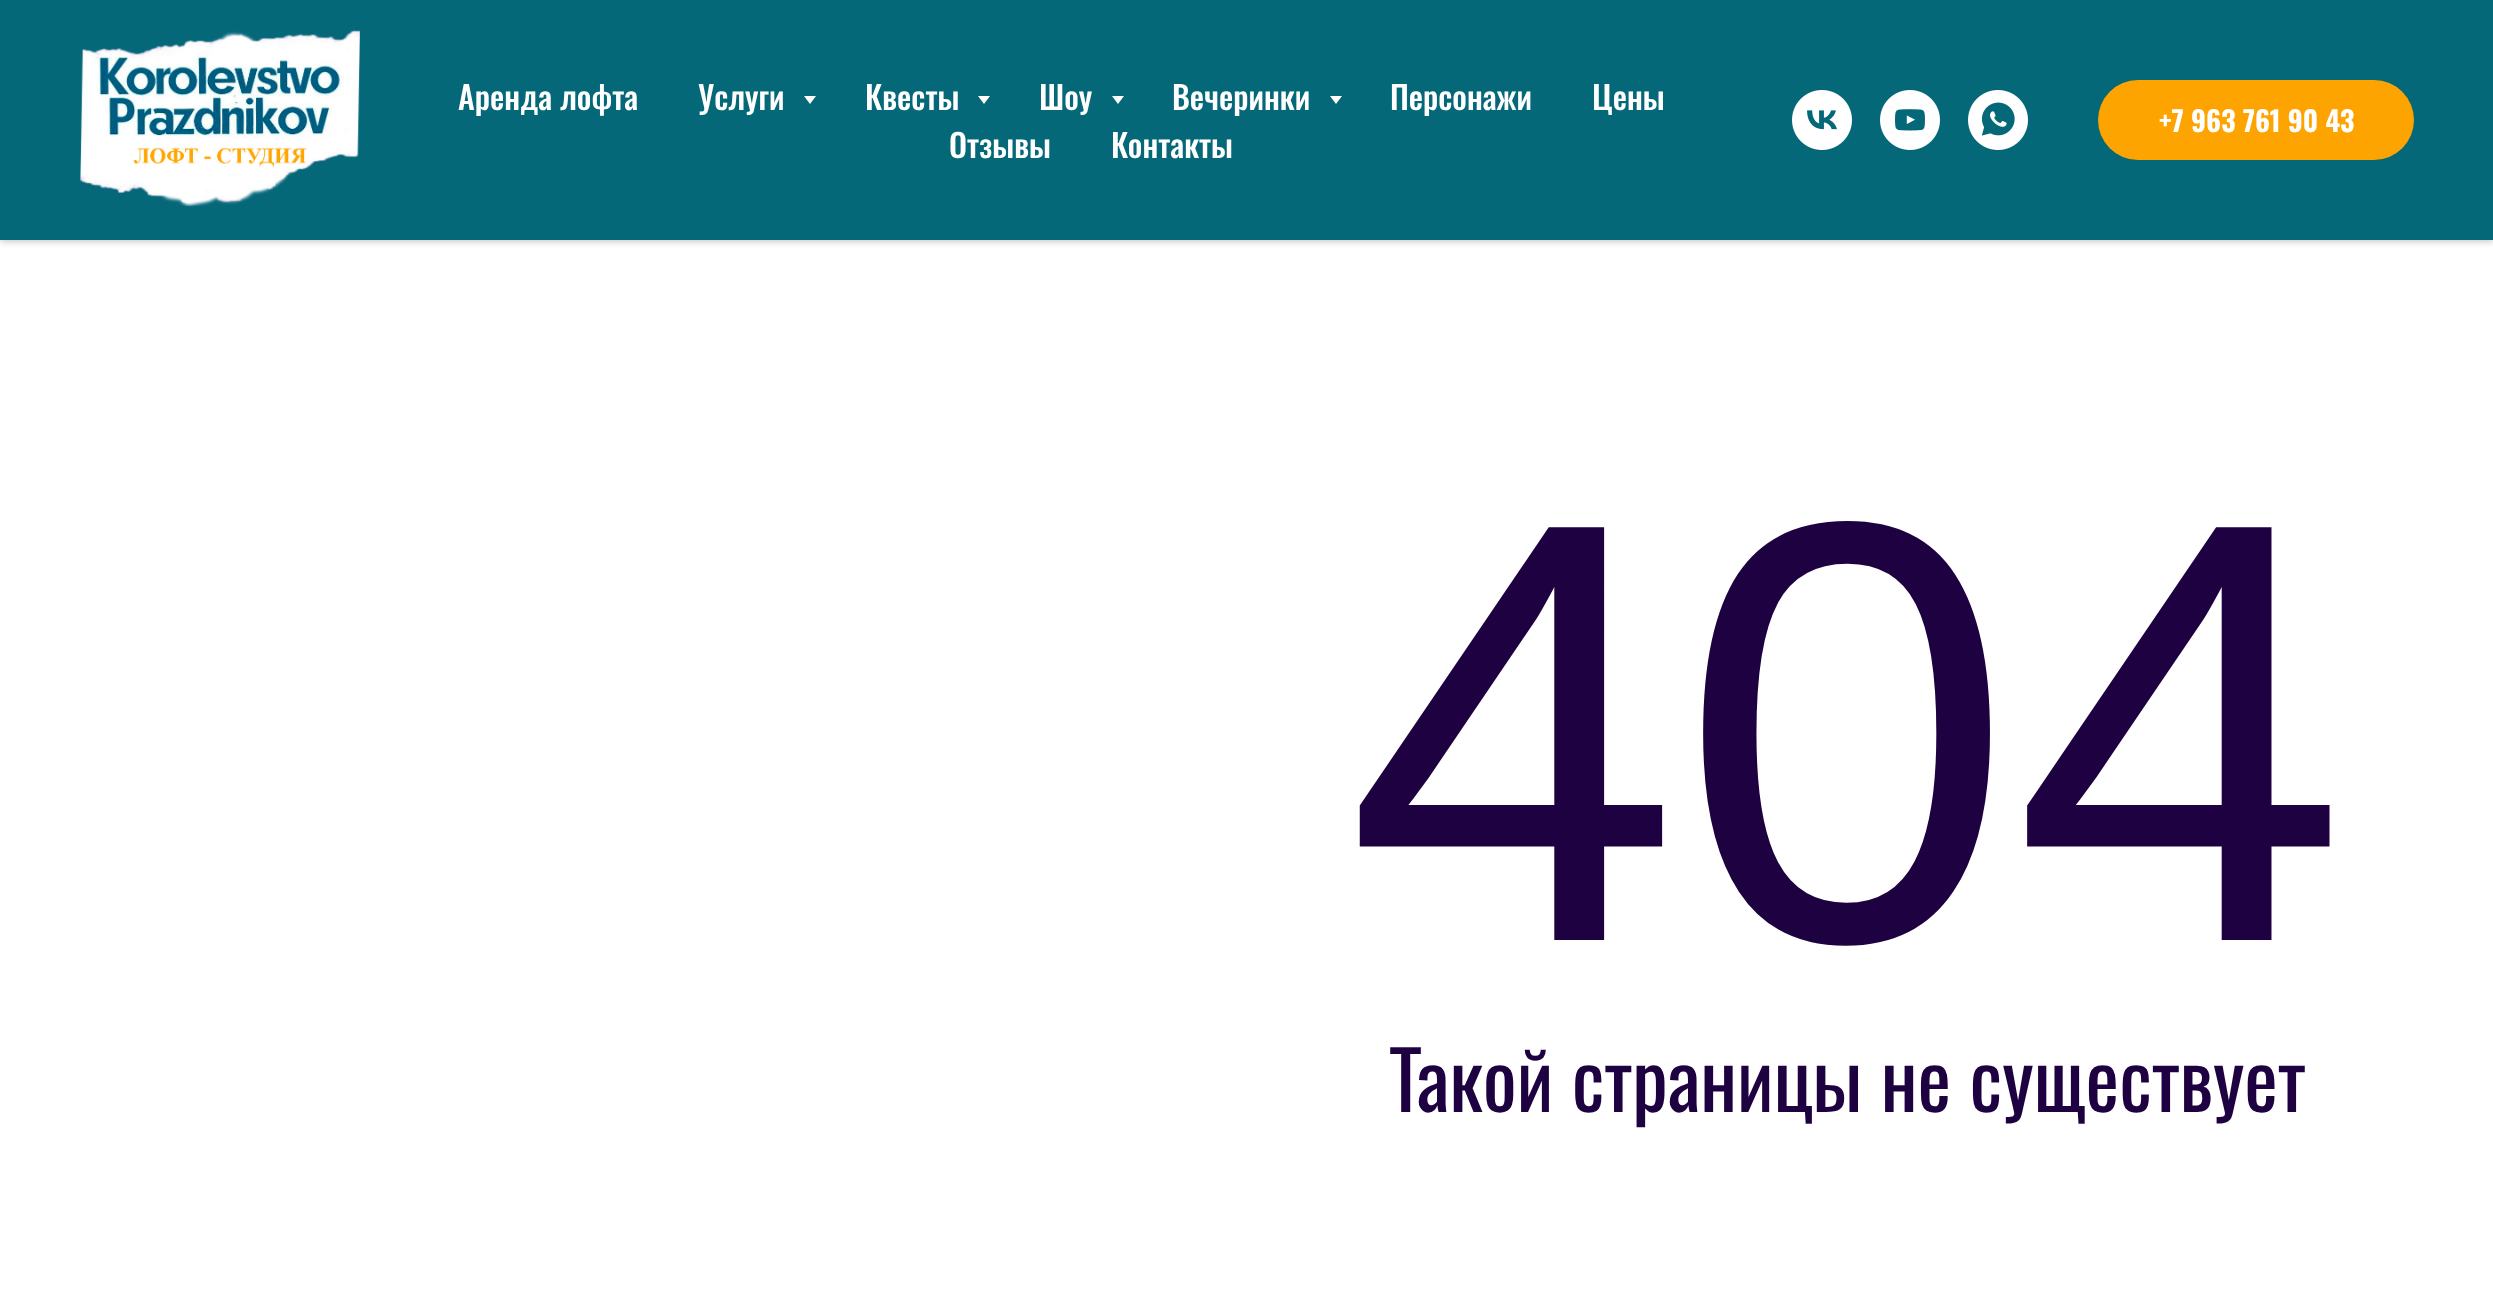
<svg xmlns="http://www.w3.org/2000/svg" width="2493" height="1298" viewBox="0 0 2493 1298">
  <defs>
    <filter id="blur1" x="-50%" y="-200%" width="200%" height="500%"><feGaussianBlur stdDeviation="3"/></filter>
  </defs>
  <rect width="100%" height="100%" fill="#ffffff"/>
  <rect x="0" y="2" width="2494" height="240" fill="#000000" fill-opacity="0.2" filter="url(#blur1)"/>
  <rect x="0" y="0" width="2493" height="240" fill="#046879"/>
  <image x="80" y="30" width="280" height="177" href="img1.png"/>
  <text x="458" y="110" font-family="Oswald" font-size="32" font-weight="500" fill="#ffffff">Аренда лофта</text>
  <text x="698" y="110" font-family="Oswald" font-size="32" font-weight="500" fill="#ffffff">Услуги</text>
  <path d="M804 96H816L810 104Z" fill="#ffffff"/>
  <text x="865" y="110" font-family="Oswald" font-size="32" font-weight="500" fill="#ffffff">Квесты</text>
  <path d="M978 96H990L984 104Z" fill="#ffffff"/>
  <text x="1039" y="110" font-family="Oswald" font-size="32" font-weight="500" fill="#ffffff">Шоу</text>
  <path d="M1112 96H1124L1118 104Z" fill="#ffffff"/>
  <text x="1172" y="110" font-family="Oswald" font-size="32" font-weight="500" fill="#ffffff">Вечеринки</text>
  <path d="M1330 96H1342L1336 104Z" fill="#ffffff"/>
  <text x="1390" y="110" font-family="Oswald" font-size="32" font-weight="500" fill="#ffffff">Персонажи</text>
  <text x="1592" y="110" font-family="Oswald" font-size="32" font-weight="500" fill="#ffffff">Цены</text>
  <text x="949" y="158" font-family="Oswald" font-size="32" font-weight="500" fill="#ffffff">Отзывы</text>
  <text x="1111" y="158" font-family="Oswald" font-size="32" font-weight="500" fill="#ffffff">Контакты</text>
  <image x="1792" y="90" width="60" height="60" href="img2.png"/>
  <image x="1880" y="90" width="60" height="60" href="img3.png"/>
  <image x="1968" y="90" width="60" height="60" href="img4.png"/>
  <rect x="2098" y="80" width="316" height="80" rx="40" fill="#fea401"/>
  <text x="2159" y="132" font-family="Oswald" font-size="28" font-weight="bold" fill="#ffffff">+7 963 761 90 43</text>
  <text x="1346" y="940" font-family="Liberation Sans" font-size="600" fill="#1e0141">404</text>
  <text x="1389" y="1112" font-family="Oswald" font-size="80" fill="#1e0141">Такой страницы не существует</text>
</svg>
